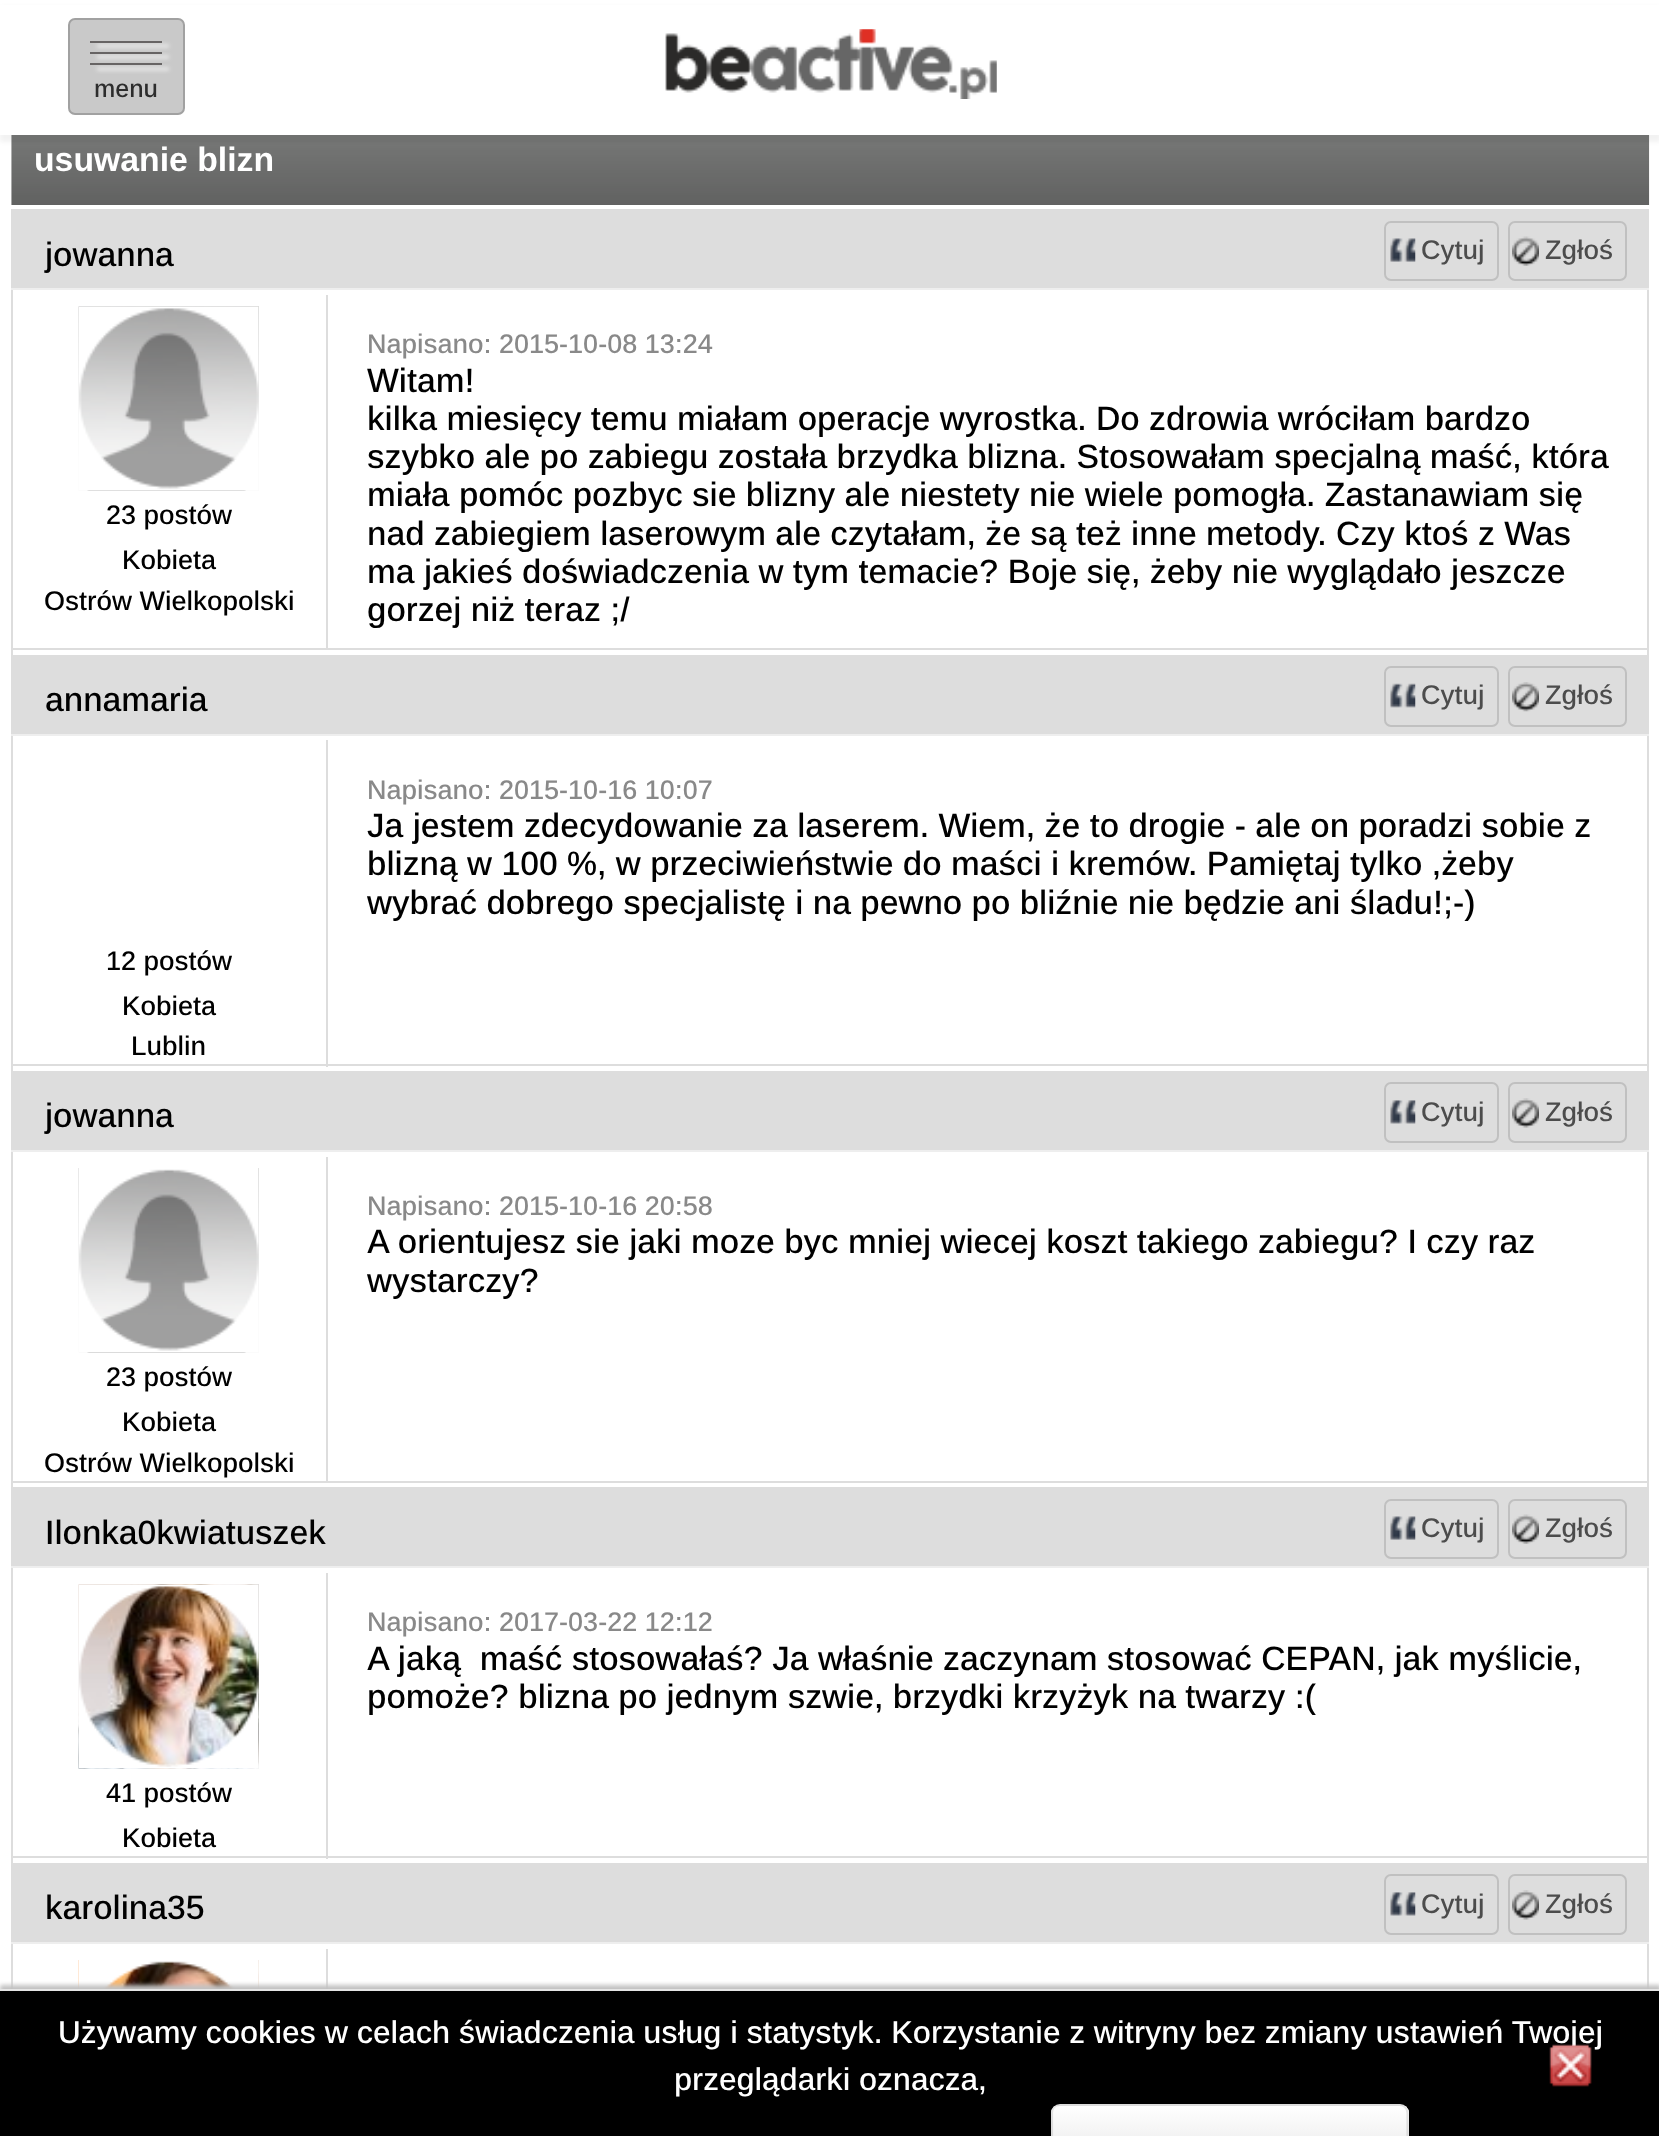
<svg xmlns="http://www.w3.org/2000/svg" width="1659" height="2136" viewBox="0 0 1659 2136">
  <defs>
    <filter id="blur1" x="-50%" y="-200%" width="200%" height="500%"><feGaussianBlur stdDeviation="2"/></filter>
    <clipPath id="clip1"><rect x="1051" y="2104" width="358" height="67" rx="9"/></clipPath>
    <linearGradient id="g1" gradientUnits="userSpaceOnUse" x1="1230" y1="2106" x2="1230" y2="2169"><stop offset="0" stop-color="#ffffff"/><stop offset="1" stop-color="#e6e6e6"/></linearGradient>
  </defs>
  <rect width="100%" height="100%" fill="#ffffff"/>
  <image x="11" y="135" width="1639" height="70" href="img2.png"/>
  <rect x="0" y="7" width="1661" height="135" fill="#000000" fill-opacity="0.05" filter="url(#blur1)"/>
  <rect x="0" y="5" width="1659" height="130" fill="#ffffff"/>
  <rect x="69" y="19" width="115" height="95" rx="6" fill="#c9c9c9" stroke="#a1a1a1" stroke-width="2"/>
  <rect x="97" y="45" width="72" height="2" fill="#ffffff" filter="url(#blur1)"/>
  <rect x="90" y="41" width="72" height="2" fill="#676464"/>
  <rect x="97" y="56" width="72" height="2" fill="#ffffff" filter="url(#blur1)"/>
  <rect x="90" y="52" width="72" height="2" fill="#676464"/>
  <rect x="97" y="68" width="72" height="2" fill="#ffffff" filter="url(#blur1)"/>
  <rect x="90" y="63" width="72" height="2" fill="#676464"/>
  <text x="94" y="97" font-family="Arimo" font-size="25" font-weight="500" fill="#2d2d2d">menu</text>
  <image x="665" y="29" width="332" height="70" href="img1.png"/>
  <text x="34" y="171" font-family="Arimo" font-size="33.75" font-weight="bold" fill="#ffffff">usuwanie blizn</text>
  <rect x="1647" y="290" width="2" height="1699" fill="#dddddd"/>
  <rect x="11" y="290" width="2" height="1699" fill="#dddddd"/>
  <rect x="11" y="209" width="1638" height="79" fill="#dddddd"/>
  <rect x="11" y="288" width="1638" height="2" fill="#eeeeee"/>
  <text x="45" y="266" font-family="Arimo" font-size="33.75" font-weight="500" fill="#000000">jowanna</text>
  <image x="1390" y="238" width="26" height="24" href="img3.png"/>
  <rect x="1385" y="222" width="113" height="58" rx="6" fill="none" stroke="#c0c0c0" stroke-width="2"/>
  <text x="1421" y="259" font-family="Arimo" font-size="27" font-weight="500" fill="#4c4c4c">Cytuj</text>
  <image x="1512" y="236" width="27" height="30" href="img4.png"/>
  <rect x="1509" y="222" width="117" height="58" rx="6" fill="none" stroke="#c0c0c0" stroke-width="2"/>
  <text x="1545" y="259" font-family="Arimo" font-size="27" font-weight="500" fill="#4c4c4c">Zgłoś</text>
  <rect x="11" y="648" width="1638" height="2" fill="#dddddd"/>
  <rect x="326" y="295" width="2" height="355" fill="#dddddd"/>
  <image x="78" y="306" width="181" height="185" href="img5.png"/>
  <image x="79" y="306" width="180" height="185" href="img6.png"/>
  <text x="106" y="524" font-family="Arimo" font-size="27" font-weight="500" fill="#000000">23 postów</text>
  <text x="122" y="569" font-family="Arimo" font-size="27" font-weight="500" fill="#000000">Kobieta</text>
  <text x="44" y="610" font-family="Arimo" font-size="27" font-weight="500" fill="#000000">Ostrów Wielkopolski</text>
  <text x="367" y="353" font-family="Arimo" font-size="27" font-weight="500" fill="#898989">Napisano: 2015-10-08 13:24</text>
  <text x="367" y="392" font-family="Arimo" font-size="33.75" font-weight="500" fill="#000000">Witam!</text>
  <text x="367" y="430" font-family="Arimo" font-size="33.75" font-weight="500" fill="#000000">kilka miesięcy temu miałam operacje wyrostka. Do zdrowia wróciłam bardzo</text>
  <text x="367" y="468" font-family="Arimo" font-size="33.75" font-weight="500" fill="#000000">szybko ale po zabiegu została brzydka blizna. Stosowałam specjalną maść, która</text>
  <text x="367" y="506" font-family="Arimo" font-size="33.75" font-weight="500" fill="#000000">miała pomóc pozbyc sie blizny ale niestety nie wiele pomogła. Zastanawiam się</text>
  <text x="367" y="545" font-family="Arimo" font-size="33.75" font-weight="500" fill="#000000">nad zabiegiem laserowym ale czytałam, że są też inne metody. Czy ktoś z Was</text>
  <text x="367" y="583" font-family="Arimo" font-size="33.75" font-weight="500" fill="#000000">ma jakieś doświadczenia w tym temacie? Boje się, żeby nie wyglądało jeszcze</text>
  <text x="367" y="621" font-family="Arimo" font-size="33.75" font-weight="500" fill="#000000">gorzej niż teraz ;/</text>
  <rect x="13" y="655" width="1634" height="79" fill="#dddddd"/>
  <rect x="11" y="734" width="1638" height="2" fill="#eeeeee"/>
  <text x="45" y="711" font-family="Arimo" font-size="33.75" font-weight="500" fill="#000000">annamaria</text>
  <image x="1390" y="683" width="26" height="25" href="img7.png"/>
  <rect x="1385" y="667" width="113" height="59" rx="6" fill="none" stroke="#c0c0c0" stroke-width="2"/>
  <text x="1421" y="704" font-family="Arimo" font-size="27" font-weight="500" fill="#4c4c4c">Cytuj</text>
  <image x="1512" y="682" width="27" height="30" href="img8.png"/>
  <rect x="1509" y="667" width="117" height="59" rx="6" fill="none" stroke="#c0c0c0" stroke-width="2"/>
  <text x="1545" y="704" font-family="Arimo" font-size="27" font-weight="500" fill="#4c4c4c">Zgłoś</text>
  <rect x="11" y="1064" width="1638" height="2" fill="#dddddd"/>
  <text x="367" y="799" font-family="Arimo" font-size="27" font-weight="500" fill="#898989">Napisano: 2015-10-16 10:07</text>
  <text x="367" y="837" font-family="Arimo" font-size="33.75" font-weight="500" fill="#000000">Ja jestem zdecydowanie za laserem. Wiem, że to drogie - ale on poradzi sobie z</text>
  <text x="367" y="875" font-family="Arimo" font-size="33.75" font-weight="500" fill="#000000">blizną w 100 %, w przeciwieństwie do maści i kremów. Pamiętaj tylko ,żeby</text>
  <text x="367" y="914" font-family="Arimo" font-size="33.75" font-weight="500" fill="#000000">wybrać dobrego specjalistę i na pewno po bliźnie nie będzie ani śladu!;-)</text>
  <rect x="326" y="740" width="2" height="327" fill="#dddddd"/>
  <text x="106" y="970" font-family="Arimo" font-size="27" font-weight="500" fill="#000000">12 postów</text>
  <text x="122" y="1015" font-family="Arimo" font-size="27" font-weight="500" fill="#000000">Kobieta</text>
  <text x="131" y="1055" font-family="Arimo" font-size="27" font-weight="500" fill="#000000">Lublin</text>
  <rect x="13" y="1071" width="1634" height="79" fill="#dddddd"/>
  <rect x="11" y="1150" width="1638" height="2" fill="#eeeeee"/>
  <text x="45" y="1127" font-family="Arimo" font-size="33.75" font-weight="500" fill="#000000">jowanna</text>
  <image x="1390" y="1100" width="26" height="24" href="img9.png"/>
  <rect x="1385" y="1083" width="113" height="59" rx="6" fill="none" stroke="#c0c0c0" stroke-width="2"/>
  <text x="1421" y="1121" font-family="Arimo" font-size="27" font-weight="500" fill="#4c4c4c">Cytuj</text>
  <image x="1512" y="1098" width="27" height="30" href="img10.png"/>
  <rect x="1509" y="1083" width="117" height="59" rx="6" fill="none" stroke="#c0c0c0" stroke-width="2"/>
  <text x="1545" y="1121" font-family="Arimo" font-size="27" font-weight="500" fill="#4c4c4c">Zgłoś</text>
  <rect x="11" y="1481" width="1638" height="2" fill="#dddddd"/>
  <text x="367" y="1215" font-family="Arimo" font-size="27" font-weight="500" fill="#898989">Napisano: 2015-10-16 20:58</text>
  <text x="367" y="1253" font-family="Arimo" font-size="33.75" font-weight="500" fill="#000000">A orientujesz sie jaki moze byc mniej wiecej koszt takiego zabiegu? I czy raz</text>
  <text x="367" y="1292" font-family="Arimo" font-size="33.75" font-weight="500" fill="#000000">wystarczy?</text>
  <rect x="326" y="1157" width="2" height="326" fill="#dddddd"/>
  <image x="78" y="1168" width="181" height="185" href="img11.png"/>
  <image x="79" y="1168" width="180" height="185" href="img12.png"/>
  <text x="106" y="1386" font-family="Arimo" font-size="27" font-weight="500" fill="#000000">23 postów</text>
  <text x="122" y="1431" font-family="Arimo" font-size="27" font-weight="500" fill="#000000">Kobieta</text>
  <text x="44" y="1472" font-family="Arimo" font-size="27" font-weight="500" fill="#000000">Ostrów Wielkopolski</text>
  <rect x="13" y="1487" width="1634" height="79" fill="#dddddd"/>
  <rect x="11" y="1566" width="1638" height="2" fill="#eeeeee"/>
  <text x="45" y="1544" font-family="Arimo" font-size="33.75" font-weight="500" fill="#000000">Ilonka0kwiatuszek</text>
  <image x="1390" y="1516" width="26" height="24" href="img3.png"/>
  <rect x="1385" y="1500" width="113" height="58" rx="6" fill="none" stroke="#c0c0c0" stroke-width="2"/>
  <text x="1421" y="1537" font-family="Arimo" font-size="27" font-weight="500" fill="#4c4c4c">Cytuj</text>
  <image x="1512" y="1514" width="27" height="30" href="img4.png"/>
  <rect x="1509" y="1500" width="117" height="58" rx="6" fill="none" stroke="#c0c0c0" stroke-width="2"/>
  <text x="1545" y="1537" font-family="Arimo" font-size="27" font-weight="500" fill="#4c4c4c">Zgłoś</text>
  <rect x="11" y="1856" width="1638" height="2" fill="#dddddd"/>
  <text x="367" y="1631" font-family="Arimo" font-size="27" font-weight="500" fill="#898989">Napisano: 2017-03-22 12:12</text>
  <text x="367" y="1670" font-family="Arimo" font-size="33.75" font-weight="500" fill="#000000" xml:space="preserve">A jaką  maść stosowałaś? Ja właśnie zaczynam stosować CEPAN, jak myślicie,</text>
  <text x="367" y="1708" font-family="Arimo" font-size="33.75" font-weight="500" fill="#000000">pomoże? blizna po jednym szwie, brzydki krzyżyk na twarzy :(</text>
  <rect x="326" y="1573" width="2" height="286" fill="#dddddd"/>
  <image x="78" y="1584" width="181" height="185" href="img13.png"/>
  <image x="79" y="1584" width="180" height="185" href="img14.png"/>
  <text x="106" y="1802" font-family="Arimo" font-size="27" font-weight="500" fill="#000000">41 postów</text>
  <text x="122" y="1847" font-family="Arimo" font-size="27" font-weight="500" fill="#000000">Kobieta</text>
  <rect x="13" y="1863" width="1634" height="79" fill="#dddddd"/>
  <rect x="11" y="1942" width="1638" height="2" fill="#eeeeee"/>
  <text x="45" y="1919" font-family="Arimo" font-size="33.75" font-weight="500" fill="#000000">karolina35</text>
  <image x="1390" y="1892" width="26" height="24" href="img9.png"/>
  <rect x="1385" y="1875" width="113" height="59" rx="6" fill="none" stroke="#c0c0c0" stroke-width="2"/>
  <text x="1421" y="1913" font-family="Arimo" font-size="27" font-weight="500" fill="#4c4c4c">Cytuj</text>
  <image x="1512" y="1890" width="27" height="30" href="img10.png"/>
  <rect x="1509" y="1875" width="117" height="59" rx="6" fill="none" stroke="#c0c0c0" stroke-width="2"/>
  <text x="1545" y="1913" font-family="Arimo" font-size="27" font-weight="500" fill="#4c4c4c">Zgłoś</text>
  <rect x="326" y="1949" width="2" height="40" fill="#dddddd"/>
  <image x="78" y="1960" width="181" height="29" href="img15.png"/>
  <image x="79" y="1960" width="180" height="29" href="img16.png"/>
  <rect x="0" y="1985" width="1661" height="148" fill="#c1c1c1" filter="url(#blur1)"/>
  <rect x="0" y="1991" width="1659" height="145" fill="#000000"/>
  <rect x="0" y="1989" width="1659" height="2" fill="#e5e5e5"/>
  <text x="58" y="2043" font-family="Arimo" font-size="31.5" font-weight="500" fill="#ffffff">Używamy cookies w celach świadczenia usług i statystyk. Korzystanie z witryny bez zmiany ustawień Twojej</text>
  <text x="674" y="2090" font-family="Arimo" font-size="31.5" font-weight="500" fill="#ffffff">przeglądarki oznacza,</text>
  <rect x="1051" y="2104" width="358" height="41" rx="9" fill="#f5f5f5"/>
  <g clip-path="url(#clip1)">
    <rect x="1051" y="2106" width="358" height="30" fill="url(#g1)"/>
  </g>
  <path d="M1054 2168C1052.5 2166.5 1052 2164.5 1052 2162V2113C1052 2110.5 1052.5 2108.5 1054 2107C1055.5 2105.5 1057.5 2105 1060 2105H1399.5C1401.5 2105 1403.5 2105.5 1405 2107C1406.5 2108.5 1407.5 2110.5 1407.5 2113V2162C1407.5 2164.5 1406.5 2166.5 1405 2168" fill="none" stroke="#000000" stroke-opacity="0.1" stroke-width="2.2"/>
  <image x="1549" y="2044" width="43" height="43" href="img17.png"/>
</svg>
